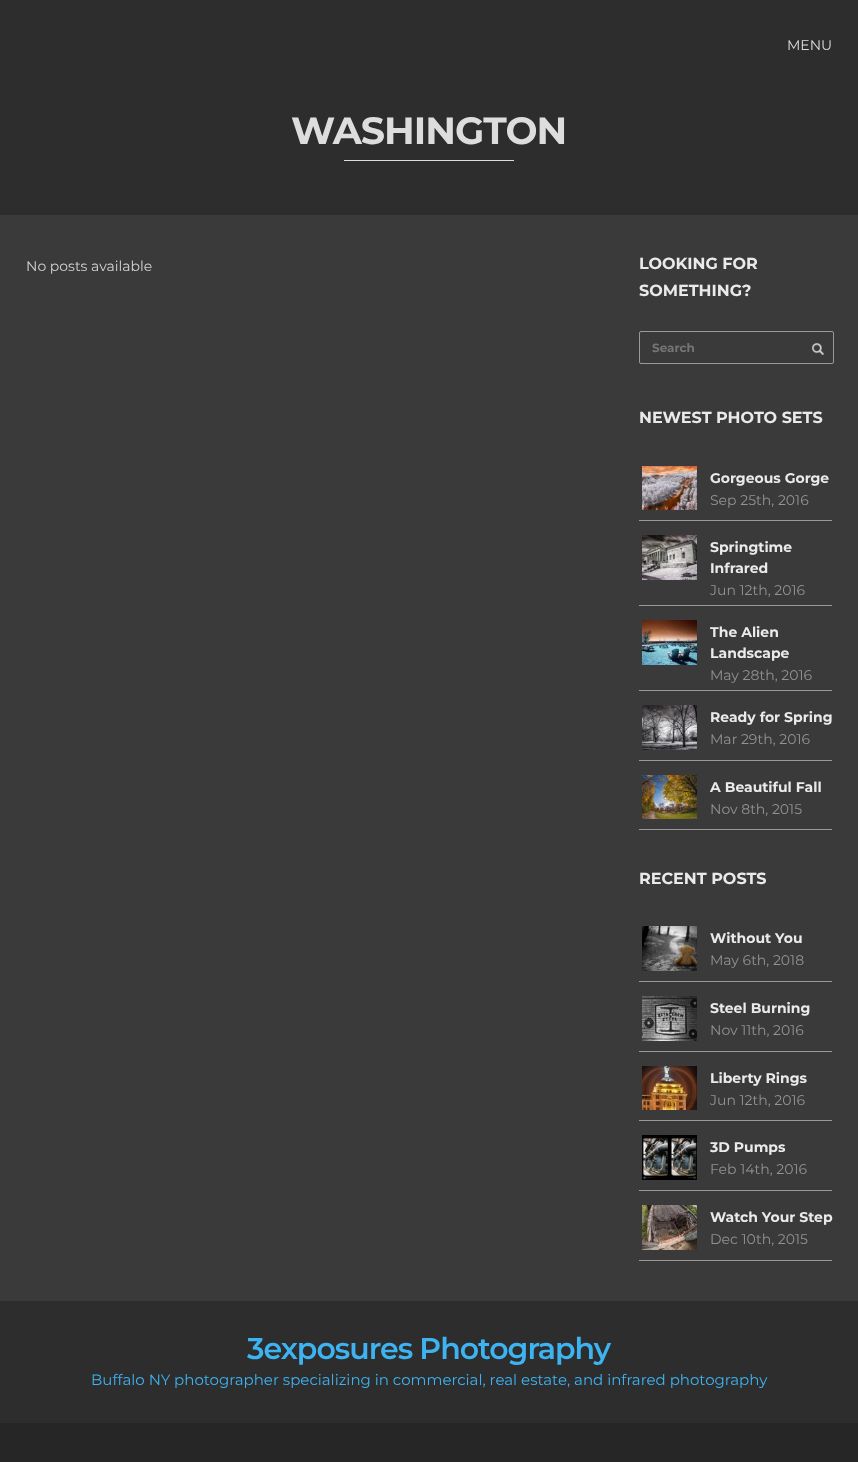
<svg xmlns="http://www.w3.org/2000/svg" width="858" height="1462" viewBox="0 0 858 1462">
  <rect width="100%" height="100%" fill="#3a3a3a"/>
  <rect x="0" y="0" width="858" height="215" fill="#2d2d2d"/>
  <text x="787" y="50" font-family="Montserrat" font-size="14" fill="#dddddd">MENU</text>
  <text x="291" y="144" font-family="Montserrat" font-size="38" font-weight="bold" letter-spacing="-1" fill="#dddddd">WASHINGTON</text>
  <rect x="344" y="160" width="170" height="1" fill="#dddddd"/>
  <text x="26" y="271" font-family="Montserrat" font-size="14" fill="#d3d3d3">No posts available</text>
  <text x="639" y="269" font-family="Montserrat" font-size="16" font-weight="bold" fill="#eaeaea">LOOKING FOR</text>
  <text x="639" y="296" font-family="Montserrat" font-size="16" font-weight="bold" fill="#eaeaea">SOMETHING?</text>
  <rect x="639.5" y="331.5" width="194" height="32" rx="1.5" fill="none" stroke="#999999"/>
  <text x="652" y="352" font-family="Montserrat" font-size="12" font-weight="bold" fill="#757575">Search</text>
  <image x="812" y="343" width="12" height="12" href="img1.png"/>
  <text x="639" y="423" font-family="Montserrat" font-size="16" font-weight="bold" fill="#eaeaea">NEWEST PHOTO SETS</text>
  <rect x="639" y="520" width="193" height="1" fill="#999999"/>
  <image x="642" y="466" width="55" height="44" href="img2.png"/>
  <text x="710" y="483" font-family="Montserrat" font-size="14" font-weight="bold" fill="#eaeaea">Gorgeous Gorge</text>
  <text x="710" y="505" font-family="Montserrat" font-size="14" fill="#929292">Sep 25th, 2016</text>
  <rect x="639" y="605" width="193" height="1" fill="#999999"/>
  <image x="642" y="535" width="55" height="45" href="img3.png"/>
  <text x="710" y="552" font-family="Montserrat" font-size="14" font-weight="bold" fill="#eaeaea">Springtime</text>
  <text x="710" y="573" font-family="Montserrat" font-size="14" font-weight="bold" fill="#eaeaea">Infrared</text>
  <text x="710" y="595" font-family="Montserrat" font-size="14" fill="#929292">Jun 12th, 2016</text>
  <rect x="639" y="690" width="193" height="1" fill="#999999"/>
  <image x="642" y="620" width="55" height="45" href="img4.png"/>
  <text x="710" y="637" font-family="Montserrat" font-size="14" font-weight="bold" fill="#eaeaea">The Alien</text>
  <text x="710" y="658" font-family="Montserrat" font-size="14" font-weight="bold" fill="#eaeaea">Landscape</text>
  <text x="710" y="680" font-family="Montserrat" font-size="14" fill="#929292">May 28th, 2016</text>
  <rect x="639" y="760" width="193" height="1" fill="#999999"/>
  <image x="642" y="705" width="55" height="45" href="img5.png"/>
  <text x="710" y="722" font-family="Montserrat" font-size="14" font-weight="bold" fill="#eaeaea">Ready for Spring</text>
  <text x="710" y="744" font-family="Montserrat" font-size="14" fill="#929292">Mar 29th, 2016</text>
  <rect x="639" y="829" width="193" height="1" fill="#999999"/>
  <image x="642" y="775" width="55" height="44" href="img6.png"/>
  <text x="710" y="792" font-family="Montserrat" font-size="14" font-weight="bold" fill="#eaeaea">A Beautiful Fall</text>
  <text x="710" y="814" font-family="Montserrat" font-size="14" fill="#929292">Nov 8th, 2015</text>
  <text x="639" y="884" font-family="Montserrat" font-size="16" font-weight="bold" fill="#eaeaea">RECENT POSTS</text>
  <rect x="639" y="981" width="193" height="1" fill="#999999"/>
  <image x="642" y="926" width="55" height="45" href="img7.png"/>
  <text x="710" y="943" font-family="Montserrat" font-size="14" font-weight="bold" fill="#eaeaea">Without You</text>
  <text x="710" y="965" font-family="Montserrat" font-size="14" fill="#929292">May 6th, 2018</text>
  <rect x="639" y="1051" width="193" height="1" fill="#999999"/>
  <image x="642" y="996" width="55" height="45" href="img8.png"/>
  <text x="710" y="1013" font-family="Montserrat" font-size="14" font-weight="bold" fill="#eaeaea">Steel Burning</text>
  <text x="710" y="1035" font-family="Montserrat" font-size="14" fill="#929292">Nov 11th, 2016</text>
  <rect x="639" y="1120" width="193" height="1" fill="#999999"/>
  <image x="642" y="1066" width="55" height="44" href="img9.png"/>
  <text x="710" y="1083" font-family="Montserrat" font-size="14" font-weight="bold" fill="#eaeaea">Liberty Rings</text>
  <text x="710" y="1105" font-family="Montserrat" font-size="14" fill="#929292">Jun 12th, 2016</text>
  <rect x="639" y="1190" width="193" height="1" fill="#999999"/>
  <image x="642" y="1135" width="55" height="45" href="img10.png"/>
  <text x="710" y="1152" font-family="Montserrat" font-size="14" font-weight="bold" fill="#eaeaea">3D Pumps</text>
  <text x="710" y="1174" font-family="Montserrat" font-size="14" fill="#929292">Feb 14th, 2016</text>
  <rect x="639" y="1260" width="193" height="1" fill="#999999"/>
  <image x="642" y="1205" width="55" height="45" href="img11.png"/>
  <text x="710" y="1222" font-family="Montserrat" font-size="14" font-weight="bold" fill="#eaeaea">Watch Your Step</text>
  <text x="710" y="1244" font-family="Montserrat" font-size="14" fill="#929292">Dec 10th, 2015</text>
  <rect x="0" y="1423" width="858" height="39" fill="#262626"/>
  <rect x="0" y="1301" width="858" height="122" fill="#2d2d2d"/>
  <text x="247" y="1359" font-family="Montserrat" font-size="30" font-weight="600" letter-spacing="-1" fill="#3eb3f2">3exposures Photography</text>
  <text x="91" y="1385" font-family="Montserrat" font-size="15" fill="#3eb3f2">Buffalo NY photographer specializing in commercial, real estate, and infrared photography</text>
</svg>
